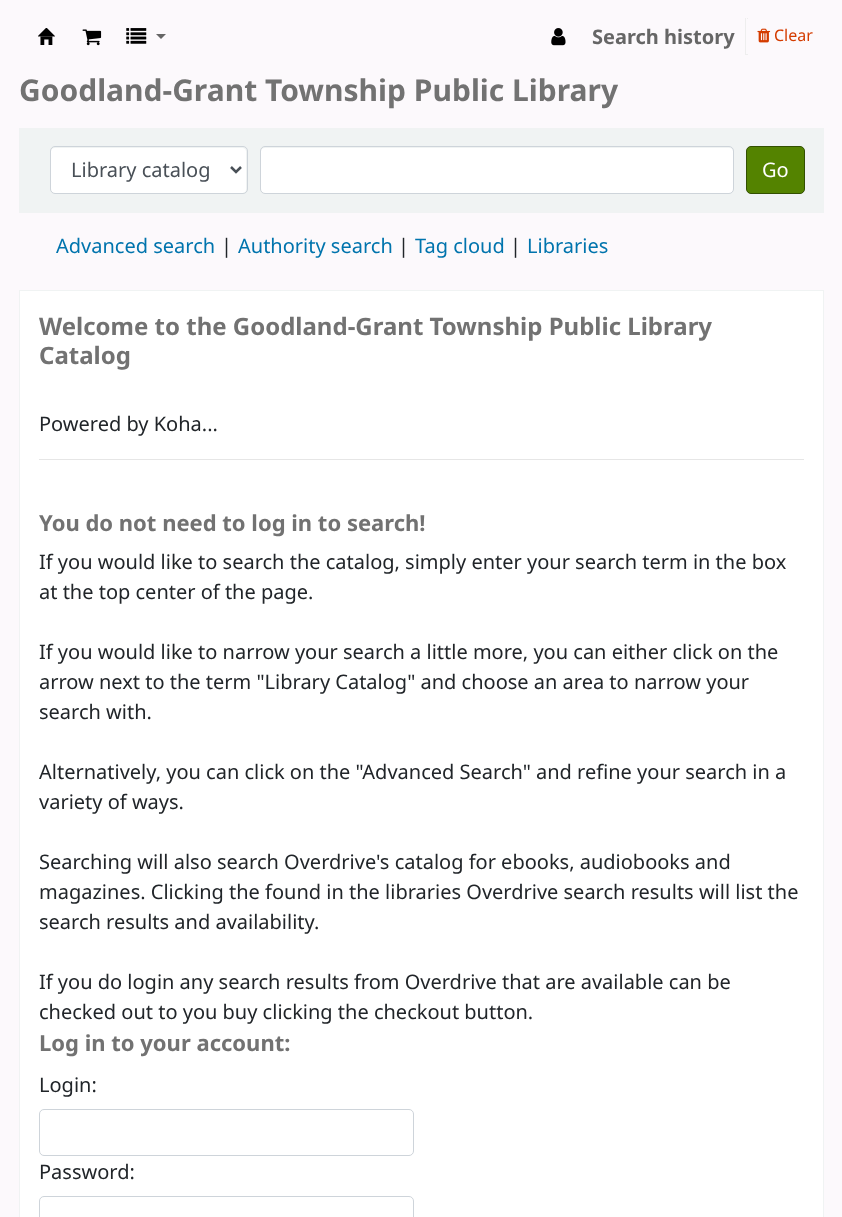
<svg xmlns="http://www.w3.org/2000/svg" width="842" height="1217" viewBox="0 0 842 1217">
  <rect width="100%" height="100%" fill="#fcf9fc"/>
  <image x="38" y="28" width="17" height="17" href="img1.png"/>
  <image x="82" y="29" width="20" height="17" href="img2.png"/>
  <image x="126" y="28" width="21" height="16" href="img3.png"/>
  <path d="M156 34H166L161 39Z" fill="#666666"/>
  <image x="551" y="28" width="15" height="18" href="img4.png"/>
  <text x="592" y="44" font-family="Noto Sans" font-size="20" font-weight="bold" fill="#666666">Search history</text>
  <rect x="745" y="18" width="3" height="1" fill="#eeeeee"/>
  <rect x="746" y="18" width="1" height="1" fill="#fcf9fc"/>
  <rect x="745" y="54" width="3" height="1" fill="#eeeeee"/>
  <rect x="745" y="18" width="1" height="37" fill="#eeeeee"/>
  <image x="757" y="28" width="14" height="15" href="img5.png"/>
  <text x="774" y="41" font-family="Noto Sans" font-size="16" fill="#d43c00">Clear</text>
  <text x="19" y="101" font-family="Noto Sans" font-size="30" font-weight="bold" fill="#727272">Goodland-Grant Township Public Library</text>
  <rect x="19" y="128" width="805" height="85" fill="#f0f3f3"/>
  <rect x="51" y="148" width="195" height="45" rx="4" fill="#ffffff"/>
  <rect x="50.5" y="146.5" width="197" height="47" rx="4.5" fill="none" stroke="#ced4da"/>
  <path d="M231 167L236 172L241 167" fill="none" stroke="#495057" stroke-width="2.5"/>
  <text x="71" y="177" font-family="Noto Sans" font-size="20" fill="#495057">Library catalog</text>
  <rect x="261" y="148" width="472" height="45" rx="4" fill="#ffffff"/>
  <rect x="260.5" y="146.5" width="473" height="47" rx="4.5" fill="none" stroke="#ced4da"/>
  <rect x="746.5" y="146.5" width="58" height="47" rx="4.5" fill="#548300" stroke="#335000"/>
  <text x="762" y="177" font-family="Noto Sans" font-size="20" fill="#ffffff">Go</text>
  <text x="56" y="253" font-family="Noto Sans" font-size="20" fill="#0074ad">Advanced search</text>
  <text x="221" y="253" font-family="Noto Sans" font-size="20" fill="#212529">|</text>
  <text x="238" y="253" font-family="Noto Sans" font-size="20" fill="#0074ad">Authority search</text>
  <text x="398" y="253" font-family="Noto Sans" font-size="20" fill="#212529">|</text>
  <text x="415" y="253" font-family="Noto Sans" font-size="20" fill="#0074ad">Tag cloud</text>
  <text x="510" y="253" font-family="Noto Sans" font-size="20" fill="#212529">|</text>
  <text x="527" y="253" font-family="Noto Sans" font-size="20" fill="#0074ad">Libraries</text>
  <rect x="19.5" y="290.5" width="804" height="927" fill="#ffffff" stroke="#f0f3f3"/>
  <text x="39" y="335" font-family="Noto Sans" font-size="24" font-weight="bold" fill="#727272">Welcome to the Goodland-Grant Township Public Library</text>
  <text x="39" y="364" font-family="Noto Sans" font-size="24" font-weight="bold" fill="#727272">Catalog</text>
  <text x="39" y="431" font-family="Noto Sans" font-size="20" fill="#212529">Powered by Koha...</text>
  <rect x="39" y="459" width="765" height="1" fill="#e6e6e6"/>
  <text x="39" y="531" font-family="Noto Sans" font-size="22" font-weight="bold" fill="#727272">You do not need to log in to search!</text>
  <text x="39" y="569" font-family="Noto Sans" font-size="20" fill="#212529">If you would like to search the catalog, simply enter your search term in the box</text>
  <text x="39" y="599" font-family="Noto Sans" font-size="20" fill="#212529">at the top center of the page.</text>
  <text x="39" y="659" font-family="Noto Sans" font-size="20" fill="#212529">If you would like to narrow your search a little more, you can either click on the</text>
  <text x="39" y="689" font-family="Noto Sans" font-size="20" fill="#212529">arrow next to the term "Library Catalog" and choose an area to narrow your</text>
  <text x="39" y="719" font-family="Noto Sans" font-size="20" fill="#212529">search with.</text>
  <text x="39" y="779" font-family="Noto Sans" font-size="20" fill="#212529">Alternatively, you can click on the "Advanced Search" and refine your search in a</text>
  <text x="39" y="809" font-family="Noto Sans" font-size="20" fill="#212529">variety of ways.</text>
  <text x="39" y="869" font-family="Noto Sans" font-size="20" fill="#212529">Searching will also search Overdrive's catalog for ebooks, audiobooks and</text>
  <text x="39" y="899" font-family="Noto Sans" font-size="20" fill="#212529">magazines. Clicking the found in the libraries Overdrive search results will list the</text>
  <text x="39" y="929" font-family="Noto Sans" font-size="20" fill="#212529">search results and availability.</text>
  <text x="39" y="989" font-family="Noto Sans" font-size="20" fill="#212529">If you do login any search results from Overdrive that are available can be</text>
  <text x="39" y="1019" font-family="Noto Sans" font-size="20" fill="#212529">checked out to you buy clicking the checkout button.</text>
  <text x="39" y="1051" font-family="Noto Sans" font-size="22" font-weight="bold" fill="#727272">Log in to your account:</text>
  <text x="39" y="1092" font-family="Noto Sans" font-size="20" fill="#212529">Login:</text>
  <rect x="39.5" y="1109.5" width="374" height="46" rx="4.5" fill="none" stroke="#ced4da"/>
  <text x="39" y="1179" font-family="Noto Sans" font-size="20" fill="#212529">Password:</text>
  <rect x="39.5" y="1196.5" width="374" height="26" rx="4.5" fill="none" stroke="#ced4da"/>
</svg>
